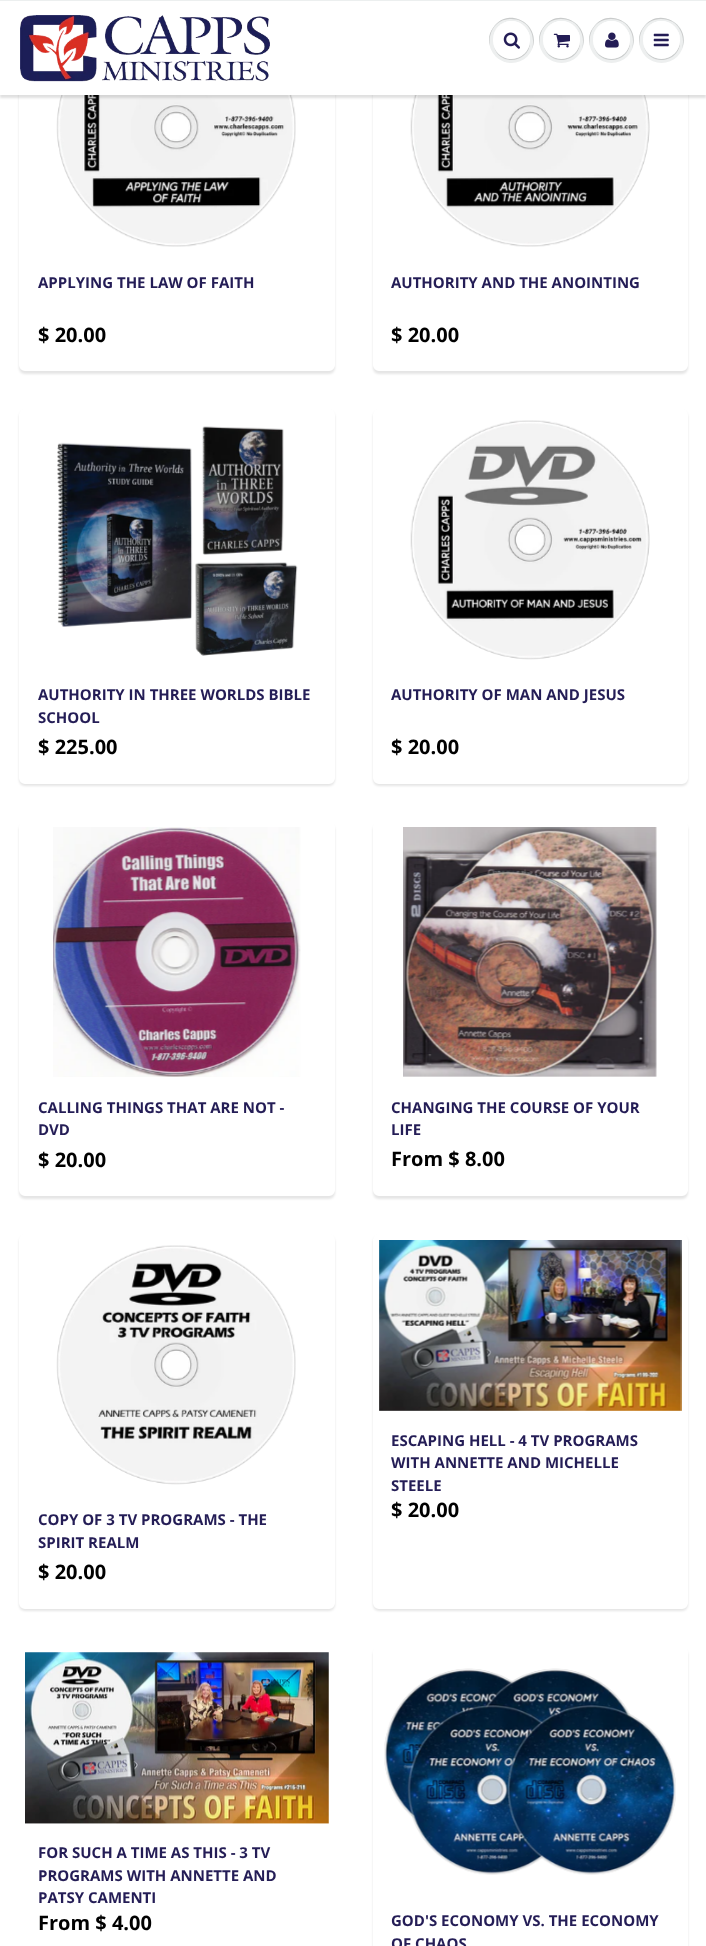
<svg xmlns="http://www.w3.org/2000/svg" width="706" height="1946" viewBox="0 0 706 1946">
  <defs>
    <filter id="blur1" x="-50%" y="-200%" width="200%" height="500%"><feGaussianBlur stdDeviation="1"/></filter>
  </defs>
  <rect width="100%" height="100%" fill="#ffffff"/>
  <rect x="19" y="-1" width="316" height="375" rx="6" fill="#0b191c" fill-opacity="0.1" filter="url(#blur1)"/>
  <rect x="22" y="-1" width="310" height="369" rx="3" fill="#ffffff" stroke="#ffffff" stroke-width="6"/>
  <image x="56" y="95" width="240" height="152" href="img6.png"/>
  <rect x="373" y="-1" width="315" height="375" rx="6" fill="#0b191c" fill-opacity="0.1" filter="url(#blur1)"/>
  <rect x="376" y="-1" width="309" height="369" rx="3" fill="#ffffff" stroke="#ffffff" stroke-width="6"/>
  <image x="410" y="95" width="240" height="152" href="img7.png"/>
  <rect x="0" y="3" width="706" height="95" fill="#0b191c" fill-opacity="0.12" filter="url(#blur1)"/>
  <rect x="0" y="1" width="706" height="94" fill="#ffffff"/>
  <rect x="0" y="0" width="706" height="1" fill="#ecefef"/>
  <image x="20" y="15" width="250" height="67" href="img1.png"/>
  <circle cx="511.5" cy="40.5" r="22.5" fill="#edefef"/>
  <path d="M511 19C529 19 536 36 532 49C542 25 508 5 493 28C489 33 488 40 490 46C488 33 495 19 511 19Z" fill="#c9cbcb"/>
  <path d="M530 41C529 61 501 65.5 494 47C500 67.5 531 62.5 530 41Z" fill="#c9cbcb"/>
  <rect x="493" y="21" width="37" height="38" rx="18.5" fill="#ffffff"/>
  <path d="M511 22C526 22 532 35.5 529 46C530.5 41.5 530.5 36.5 528.5 32.5C520.5 13.5 492.5 19 493 40.5C493 31.5 499 22 511 22Z" fill="#ffffff"/>
  <image x="503" y="32" width="17" height="17" href="img2.png"/>
  <circle cx="561.5" cy="40.5" r="22.5" fill="#edefef"/>
  <path d="M561 19C579 19 586 36 582 49C592 25 558 5 543 28C539 33 538 40 540 46C538 33 545 19 561 19Z" fill="#c9cbcb"/>
  <path d="M580 41C579 61 551 65.5 544 47C550 67.5 581 62.5 580 41Z" fill="#c9cbcb"/>
  <rect x="543" y="21" width="37" height="38" rx="18.5" fill="#ffffff"/>
  <path d="M561 22C576 22 582 35.5 579 46C580.5 41.5 580.5 36.5 578.5 32.5C570.5 13.5 542.5 19 543 40.5C543 31.5 549 22 561 22Z" fill="#ffffff"/>
  <image x="553" y="33" width="17" height="15" href="img3.png"/>
  <circle cx="611.5" cy="40.5" r="22.5" fill="#edefef"/>
  <path d="M611 19C629 19 636 36 632 49C642 25 608 5 593 28C589 33 588 40 590 46C588 33 595 19 611 19Z" fill="#c9cbcb"/>
  <path d="M630 41C629 61 601 65.5 594 47C600 67.5 631 62.5 630 41Z" fill="#c9cbcb"/>
  <rect x="593" y="21" width="37" height="38" rx="18.5" fill="#ffffff"/>
  <path d="M611 22C626 22 632 35.5 629 46C630.5 41.5 630.5 36.5 628.5 32.5C620.5 13.5 592.5 19 593 40.5C593 31.5 599 22 611 22Z" fill="#ffffff"/>
  <image x="605" y="32" width="14" height="16" href="img4.png"/>
  <circle cx="661.5" cy="40.5" r="22.5" fill="#edefef"/>
  <path d="M661 19C679 19 686 36 682 49C692 25 658 5 643 28C639 33 638 40 640 46C638 33 645 19 661 19Z" fill="#c9cbcb"/>
  <path d="M680 41C679 61 651 65.5 644 47C650 67.5 681 62.5 680 41Z" fill="#c9cbcb"/>
  <rect x="643" y="21" width="37" height="38" rx="18.5" fill="#ffffff"/>
  <path d="M661 22C676 22 682 35.5 679 46C680.5 41.5 680.5 36.5 678.5 32.5C670.5 13.5 642.5 19 643 40.5C643 31.5 649 22 661 22Z" fill="#ffffff"/>
  <image x="653" y="33" width="16" height="14" href="img5.png"/>
  <text x="38" y="288" font-family="Open Sans" font-size="15" font-weight="bold" fill="#241d56">APPLYING THE LAW OF FAITH</text>
  <text x="38" y="342" font-family="Open Sans" font-size="20" font-weight="bold" fill="#000000">$ 20.00</text>
  <text x="391" y="288" font-family="Open Sans" font-size="15" font-weight="bold" fill="#241d56">AUTHORITY AND THE ANOINTING</text>
  <text x="391" y="342" font-family="Open Sans" font-size="20" font-weight="bold" fill="#000000">$ 20.00</text>
  <rect x="19" y="411" width="316" height="375" rx="6" fill="#0b191c" fill-opacity="0.1" filter="url(#blur1)"/>
  <rect x="22" y="412" width="310" height="369" rx="3" fill="#ffffff" stroke="#ffffff" stroke-width="6"/>
  <image x="57" y="426" width="241" height="230" href="img8.png"/>
  <text x="38" y="700" font-family="Open Sans" font-size="15" font-weight="bold" fill="#241d56">AUTHORITY IN THREE WORLDS BIBLE</text>
  <text x="38" y="723" font-family="Open Sans" font-size="15" font-weight="bold" fill="#241d56">SCHOOL</text>
  <text x="38" y="754" font-family="Open Sans" font-size="20" font-weight="bold" fill="#000000">$ 225.00</text>
  <rect x="373" y="411" width="315" height="375" rx="6" fill="#0b191c" fill-opacity="0.1" filter="url(#blur1)"/>
  <rect x="376" y="412" width="309" height="369" rx="3" fill="#ffffff" stroke="#ffffff" stroke-width="6"/>
  <image x="410" y="420" width="240" height="240" href="img9.png"/>
  <text x="391" y="700" font-family="Open Sans" font-size="15" font-weight="bold" fill="#241d56">AUTHORITY OF MAN AND JESUS</text>
  <text x="391" y="754" font-family="Open Sans" font-size="20" font-weight="bold" fill="#000000">$ 20.00</text>
  <rect x="19" y="824" width="316" height="375" rx="6" fill="#0b191c" fill-opacity="0.1" filter="url(#blur1)"/>
  <rect x="22" y="824" width="310" height="369" rx="3" fill="#ffffff" stroke="#ffffff" stroke-width="6"/>
  <image x="53" y="827" width="248" height="250" href="img10.png"/>
  <text x="38" y="1113" font-family="Open Sans" font-size="15" font-weight="bold" fill="#241d56">CALLING THINGS THAT ARE NOT -</text>
  <text x="38" y="1135" font-family="Open Sans" font-size="15" font-weight="bold" fill="#241d56">DVD</text>
  <text x="38" y="1167" font-family="Open Sans" font-size="20" font-weight="bold" fill="#000000">$ 20.00</text>
  <rect x="373" y="824" width="315" height="375" rx="6" fill="#0b191c" fill-opacity="0.1" filter="url(#blur1)"/>
  <rect x="376" y="824" width="309" height="369" rx="3" fill="#ffffff" stroke="#ffffff" stroke-width="6"/>
  <image x="403" y="827" width="254" height="250" href="img11.png"/>
  <text x="391" y="1113" font-family="Open Sans" font-size="15" font-weight="bold" fill="#241d56">CHANGING THE COURSE OF YOUR</text>
  <text x="391" y="1135" font-family="Open Sans" font-size="15" font-weight="bold" fill="#241d56">LIFE</text>
  <text x="391" y="1166" font-family="Open Sans" font-size="20" font-weight="bold" fill="#000000">From $ 8.00</text>
  <rect x="373" y="1236" width="315" height="375" rx="6" fill="#0b191c" fill-opacity="0.1" filter="url(#blur1)"/>
  <rect x="376" y="1237" width="309" height="369" rx="3" fill="#ffffff" stroke="#ffffff" stroke-width="6"/>
  <image x="379" y="1240" width="303" height="171" href="img12.png"/>
  <text x="391" y="1446" font-family="Open Sans" font-size="15" font-weight="bold" fill="#241d56">ESCAPING HELL - 4 TV PROGRAMS</text>
  <text x="391" y="1468" font-family="Open Sans" font-size="15" font-weight="bold" fill="#241d56">WITH ANNETTE AND MICHELLE</text>
  <text x="391" y="1491" font-family="Open Sans" font-size="15" font-weight="bold" fill="#241d56">STEELE</text>
  <text x="391" y="1517" font-family="Open Sans" font-size="20" font-weight="bold" fill="#000000">$ 20.00</text>
  <rect x="19" y="1236" width="316" height="375" rx="6" fill="#0b191c" fill-opacity="0.1" filter="url(#blur1)"/>
  <rect x="22" y="1237" width="310" height="369" rx="3" fill="#ffffff" stroke="#ffffff" stroke-width="6"/>
  <image x="56" y="1245" width="240" height="240" href="img13.png"/>
  <text x="38" y="1525" font-family="Open Sans" font-size="15" font-weight="bold" fill="#241d56">COPY OF 3 TV PROGRAMS - THE</text>
  <text x="38" y="1548" font-family="Open Sans" font-size="15" font-weight="bold" fill="#241d56">SPIRIT REALM</text>
  <text x="38" y="1579" font-family="Open Sans" font-size="20" font-weight="bold" fill="#000000">$ 20.00</text>
  <image x="25" y="1652" width="304" height="172" href="img14.png"/>
  <text x="38" y="1858" font-family="Open Sans" font-size="15" font-weight="bold" fill="#241d56">FOR SUCH A TIME AS THIS - 3 TV</text>
  <text x="38" y="1881" font-family="Open Sans" font-size="15" font-weight="bold" fill="#241d56">PROGRAMS WITH ANNETTE AND</text>
  <text x="38" y="1903" font-family="Open Sans" font-size="15" font-weight="bold" fill="#241d56">PATSY CAMENTI</text>
  <text x="38" y="1930" font-family="Open Sans" font-size="20" font-weight="bold" fill="#000000">From $ 4.00</text>
  <rect x="373" y="1649" width="315" height="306" rx="6" fill="#0b191c" fill-opacity="0.1" filter="url(#blur1)"/>
  <rect x="373" y="1646" width="315" height="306" rx="6" fill="#ffffff"/>
  <image x="384" y="1668" width="292" height="207" href="img15.png"/>
  <text x="391" y="1926" font-family="Open Sans" font-size="15" font-weight="bold" fill="#241d56">GOD'S ECONOMY VS. THE ECONOMY</text>
  <text x="391" y="1949" font-family="Open Sans" font-size="15" font-weight="bold" fill="#241d56">OF CHAOS</text>
</svg>
